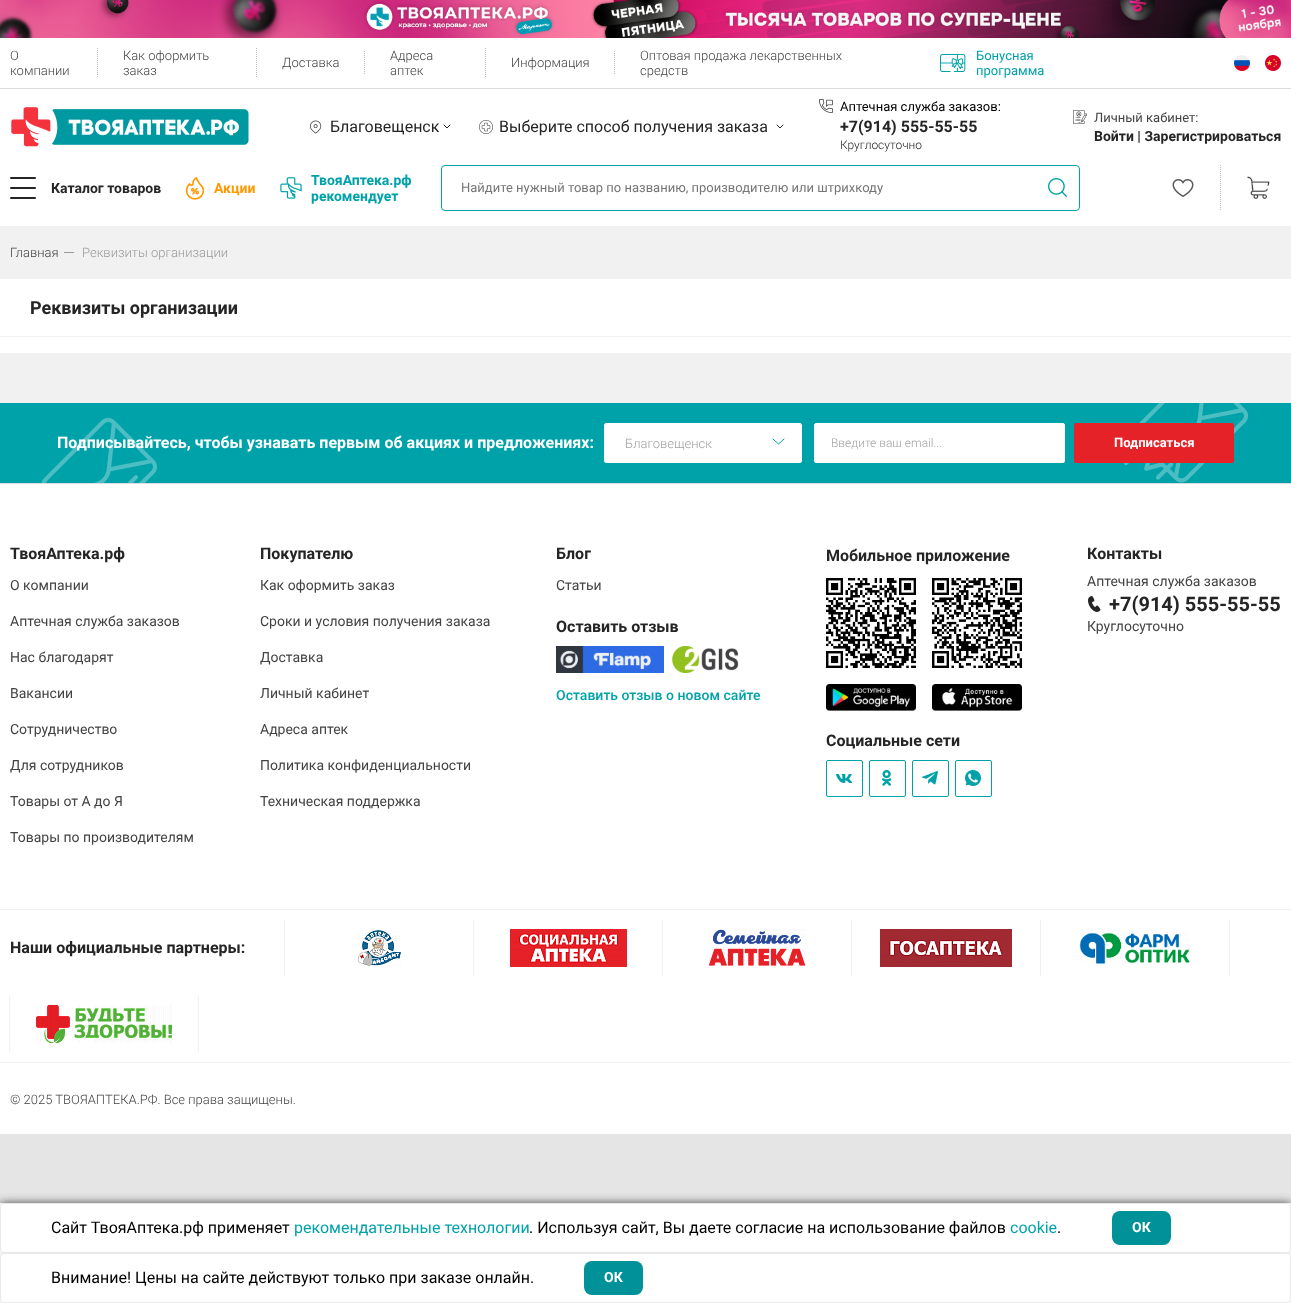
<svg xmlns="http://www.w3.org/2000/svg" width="1291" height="1303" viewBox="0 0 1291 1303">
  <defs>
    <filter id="blur1" x="-50%" y="-200%" width="200%" height="500%"><feGaussianBlur stdDeviation="5"/></filter>
  </defs>
  <rect width="100%" height="100%" fill="#e5e5e5"/>
  <rect x="0" y="226" width="1291" height="177" fill="#f1f1f1"/>
  <rect x="0" y="38" width="1291" height="188" fill="#ffffff"/>
  <image x="0" y="0" width="1291" height="38" href="img1.png"/>
  <rect x="0" y="88" width="1291" height="1" fill="#dadce0"/>
  <path d="M97.5 48V78" fill="none" stroke="#bdbdbd" stroke-dasharray="1 1"/>
  <text x="10" y="60" font-family="Roboto" font-size="13" font-weight="300" fill="#434343">О</text>
  <text x="10" y="75" font-family="Roboto" font-size="13" font-weight="300" fill="#434343">компании</text>
  <path d="M256.5 48V78" fill="none" stroke="#bdbdbd" stroke-dasharray="1 1"/>
  <text x="123" y="60" font-family="Roboto" font-size="13" font-weight="300" fill="#434343">Как оформить</text>
  <text x="123" y="75" font-family="Roboto" font-size="13" font-weight="300" fill="#434343">заказ</text>
  <path d="M364.5 51V74" fill="none" stroke="#bdbdbd" stroke-dasharray="1 1"/>
  <text x="282" y="67" font-family="Roboto" font-size="13" font-weight="300" fill="#434343">Доставка</text>
  <path d="M485.5 48V78" fill="none" stroke="#bdbdbd" stroke-dasharray="1 1"/>
  <text x="390" y="60" font-family="Roboto" font-size="13" font-weight="300" fill="#434343">Адреса</text>
  <text x="390" y="75" font-family="Roboto" font-size="13" font-weight="300" fill="#434343">аптек</text>
  <path d="M614.5 51V74" fill="none" stroke="#bdbdbd" stroke-dasharray="1 1"/>
  <text x="511" y="67" font-family="Roboto" font-size="13" font-weight="300" fill="#434343">Информация</text>
  <text x="640" y="60" font-family="Roboto" font-size="13" font-weight="300" fill="#434343">Оптовая продажа лекарственных</text>
  <text x="640" y="75" font-family="Roboto" font-size="13" font-weight="300" fill="#434343">средств</text>
  <image x="940" y="54" width="26" height="18" href="img2.png"/>
  <text x="976" y="60" font-family="Roboto" font-size="13" fill="#00a2a9">Бонусная</text>
  <text x="976" y="75" font-family="Roboto" font-size="13" fill="#00a2a9">программа</text>
  <image x="1234" y="55" width="16" height="16" href="img3.png"/>
  <image x="1265" y="55" width="16" height="16" href="img4.png"/>
  <image x="11" y="107" width="238" height="40" href="img5.png"/>
  <image x="310" y="120" width="12" height="14" href="img6.png"/>
  <text x="330" y="132" font-family="Roboto" font-size="16" fill="#252525">Благовещенск</text>
  <path d="M444 125L447 128L450 125" fill="none" stroke="#252525" stroke-linecap="round" stroke-linejoin="round"/>
  <image x="479" y="120" width="14" height="14" href="img7.png"/>
  <text x="499" y="132" font-family="Roboto" font-size="16" fill="#252525">Выберите способ получения заказа</text>
  <path d="M777 125L780 128L783 125" fill="none" stroke="#252525" stroke-linecap="round" stroke-linejoin="round"/>
  <image x="819" y="99" width="14" height="14" href="img8.png"/>
  <text x="840" y="111" font-family="Roboto" font-size="13" fill="#000000">Аптечная служба заказов:</text>
  <text x="840" y="132" font-family="Roboto" font-size="16" font-weight="bold" fill="#252525">+7(914) 555-55-55</text>
  <text x="840" y="149" font-family="Roboto" font-size="12" font-weight="300" fill="#252525">Круглосуточно</text>
  <image x="1073" y="110" width="14" height="14" href="img9.png"/>
  <text x="1094" y="122" font-family="Roboto" font-size="13" fill="#434343">Личный кабинет:</text>
  <text x="1094" y="141" font-family="Roboto" font-size="14" font-weight="bold" fill="#252525">Войти | Зарегистрироваться</text>
  <rect x="10" y="177" width="26" height="2" rx="1" fill="#252525"/>
  <rect x="10" y="187" width="26" height="2" rx="1" fill="#252525"/>
  <rect x="10" y="197" width="26" height="2" rx="1" fill="#252525"/>
  <text x="51" y="193" font-family="Roboto" font-size="14" font-weight="bold" fill="#252525">Каталог товаров</text>
  <image x="185" y="176" width="20" height="24" href="img10.png"/>
  <text x="214" y="193" font-family="Roboto" font-size="14" font-weight="bold" fill="#ff9900">Акции</text>
  <image x="280" y="177" width="22" height="22" href="img11.png"/>
  <text x="311" y="185" font-family="Roboto" font-size="14" font-weight="bold" fill="#00a2a9">ТвояАптека.рф</text>
  <text x="311" y="201" font-family="Roboto" font-size="14" font-weight="bold" fill="#00a2a9">рекомендует</text>
  <rect x="441.5" y="165.5" width="638" height="45" rx="3.5" fill="none" stroke="#00a2a9"/>
  <text x="461" y="192" font-family="Roboto" font-size="13" fill="#757575">Найдите нужный товар по названию, производителю или штрихкоду</text>
  <image x="1048" y="178" width="19" height="19" href="img12.png"/>
  <path d="M1220.5 165V211" fill="none" stroke="#bdbdbd" stroke-dasharray="1 1"/>
  <image x="1172" y="179" width="22" height="18" href="img13.png"/>
  <image x="1247" y="176" width="23" height="23" href="img14.png"/>
  <text x="10" y="257" font-family="Roboto" font-size="13" font-weight="300" fill="#434343">Главная</text>
  <rect x="64" y="252" width="10" height="1" fill="#9a9a9a"/>
  <text x="82" y="257" font-family="Roboto" font-size="13" font-weight="300" fill="#9a9a9a">Реквизиты организации</text>
  <rect x="0" y="279" width="1291" height="57" fill="#ffffff"/>
  <text x="30" y="314" font-family="Roboto" font-size="18" font-weight="bold" fill="#252525">Реквизиты организации</text>
  <rect x="0" y="337" width="1291" height="16" fill="#ffffff"/>
  <rect x="0" y="403" width="1291" height="80" fill="#00a2a9"/>
  <text x="57" y="448" font-family="Roboto" font-size="16" font-weight="bold" fill="#ffffff">Подписывайтесь, чтобы узнавать первым об акцияx и предложениях:</text>
  <image x="41" y="417" width="116" height="66" href="img15.png"/>
  <image x="1123" y="403" width="125" height="80" href="img16.png"/>
  <rect x="605" y="424" width="196" height="38" rx="1" fill="#ffffff"/>
  <path d="M773 439L778.5 444L784 439" fill="none" stroke="#00a2a9" stroke-linecap="round" stroke-linejoin="round"/>
  <rect x="604.5" y="423.5" width="197" height="39" rx="1.5" fill="none" stroke="#ffffff"/>
  <text x="625" y="448" font-family="Roboto" font-size="13" font-weight="300" fill="#a1a1a1">Благовещенск</text>
  <rect x="814.5" y="423.5" width="250" height="39" rx="1.5" fill="#ffffff" stroke="#ffffff"/>
  <text x="831" y="447" font-family="Roboto" font-size="12" font-weight="300" fill="#a1a1a1">Введите ваш email...</text>
  <rect x="1074" y="423" width="160" height="40" rx="2" fill="#e62229"/>
  <text x="1114" y="447" font-family="Roboto" font-size="13" font-weight="bold" fill="#ffffff">Подписаться</text>
  <rect x="0" y="484" width="1291" height="650" fill="#ffffff"/>
  <rect x="0" y="483" width="1291" height="1" fill="#dadce0"/>
  <text x="10" y="559" font-family="Roboto" font-size="16" font-weight="bold" fill="#252525">ТвояАптека.рф</text>
  <text x="10" y="590" font-family="Roboto" font-size="14" fill="#434343">О компании</text>
  <text x="10" y="626" font-family="Roboto" font-size="14" fill="#434343">Аптечная служба заказов</text>
  <text x="10" y="662" font-family="Roboto" font-size="14" fill="#434343">Нас благодарят</text>
  <text x="10" y="698" font-family="Roboto" font-size="14" fill="#434343">Вакансии</text>
  <text x="10" y="734" font-family="Roboto" font-size="14" fill="#434343">Сотрудничество</text>
  <text x="10" y="770" font-family="Roboto" font-size="14" fill="#434343">Для сотрудников</text>
  <text x="10" y="806" font-family="Roboto" font-size="14" fill="#434343">Товары от А до Я</text>
  <text x="10" y="842" font-family="Roboto" font-size="14" fill="#434343">Товары по производителям</text>
  <text x="260" y="559" font-family="Roboto" font-size="16" font-weight="bold" fill="#252525">Покупателю</text>
  <text x="260" y="590" font-family="Roboto" font-size="14" fill="#434343">Как оформить заказ</text>
  <text x="260" y="626" font-family="Roboto" font-size="14" fill="#434343">Сроки и условия получения заказа</text>
  <text x="260" y="662" font-family="Roboto" font-size="14" fill="#434343">Доставка</text>
  <text x="260" y="698" font-family="Roboto" font-size="14" fill="#434343">Личный кабинет</text>
  <text x="260" y="734" font-family="Roboto" font-size="14" fill="#434343">Адреса аптек</text>
  <text x="260" y="770" font-family="Roboto" font-size="14" fill="#434343">Политика конфиденциальности</text>
  <text x="260" y="806" font-family="Roboto" font-size="14" fill="#434343">Техническая поддержка</text>
  <text x="556" y="559" font-family="Roboto" font-size="16" font-weight="bold" fill="#252525">Блог</text>
  <text x="556" y="590" font-family="Roboto" font-size="14" fill="#434343">Статьи</text>
  <text x="556" y="632" font-family="Roboto" font-size="16" font-weight="bold" fill="#252525">Оставить отзыв</text>
  <image x="556" y="646" width="108" height="27" href="img17.png"/>
  <image x="672" y="646" width="67" height="27" href="img18.png"/>
  <text x="556" y="700" font-family="Roboto" font-size="14" font-weight="500" fill="#00a2a9">Оставить отзыв о новом сайте</text>
  <text x="826" y="561" font-family="Roboto" font-size="16" font-weight="bold" fill="#252525">Мобильное приложение</text>
  <image x="826" y="578" width="90" height="90" href="img19.png"/>
  <image x="826" y="684" width="90" height="27" href="img20.png"/>
  <image x="932" y="578" width="90" height="90" href="img21.png"/>
  <image x="932" y="684" width="90" height="27" href="img22.png"/>
  <text x="826" y="746" font-family="Roboto" font-size="16" font-weight="bold" fill="#252525">Социальные сети</text>
  <rect x="826.5" y="760.5" width="36" height="36" rx="1.5" fill="none" stroke="#00a2a9"/>
  <image x="836" y="774" width="16" height="9" href="img23.png"/>
  <rect x="869.5" y="760.5" width="36" height="36" rx="1.5" fill="none" stroke="#00a2a9"/>
  <image x="882" y="770" width="10" height="16" href="img24.png"/>
  <rect x="912.5" y="760.5" width="36" height="36" rx="1.5" fill="none" stroke="#00a2a9"/>
  <image x="922" y="771" width="16" height="14" href="img25.png"/>
  <rect x="955.5" y="760.5" width="36" height="36" rx="1.5" fill="none" stroke="#00a2a9"/>
  <image x="965" y="770" width="16" height="16" href="img26.png"/>
  <text x="1087" y="559" font-family="Roboto" font-size="16" font-weight="bold" fill="#252525">Контакты</text>
  <text x="1087" y="586" font-family="Roboto" font-size="14" fill="#434343">Аптечная служба заказов</text>
  <image x="1088" y="596" width="13" height="16" href="img27.png"/>
  <text x="1109" y="611" font-family="Roboto" font-size="20" font-weight="bold" fill="#252525">+7(914) 555-55-55</text>
  <text x="1087" y="631" font-family="Roboto" font-size="14" fill="#434343">Круглосуточно</text>
  <rect x="0" y="909" width="1291" height="1" fill="#f1f1f1"/>
  <rect x="0" y="1062" width="1291" height="1" fill="#f1f1f1"/>
  <text x="10" y="953" font-family="Roboto" font-size="16" font-weight="bold" fill="#252525">Наши официальные партнеры:</text>
  <rect x="473" y="920" width="1" height="56" fill="#f1f1f1"/>
  <rect x="284" y="920" width="1" height="56" fill="#f1f1f1"/>
  <image x="357" y="930" width="44" height="36" href="img28.png"/>
  <rect x="662" y="920" width="1" height="56" fill="#f1f1f1"/>
  <image x="510" y="929" width="117" height="38" href="img29.png"/>
  <rect x="851" y="920" width="1" height="56" fill="#f1f1f1"/>
  <image x="709" y="929" width="97" height="37" href="img30.png"/>
  <rect x="1040" y="920" width="1" height="56" fill="#f1f1f1"/>
  <image x="880" y="929" width="132" height="38" href="img31.png"/>
  <rect x="1229" y="920" width="1" height="56" fill="#f1f1f1"/>
  <image x="1079" y="932" width="111" height="32" href="img32.png"/>
  <rect x="198" y="996" width="1" height="56" fill="#f1f1f1"/>
  <rect x="9" y="996" width="1" height="56" fill="#f1f1f1"/>
  <image x="36" y="1005" width="136" height="38" href="img33.png"/>
  <text x="10" y="1104" font-family="Roboto" font-size="13" font-weight="300" fill="#434343">© 2025 ТВОЯАПТЕКА.РФ. Все права защищены.</text>
  <rect x="0" y="1203" width="1291" height="100" fill="#484848" filter="url(#blur1)"/>
  <rect x="0" y="1203" width="1291" height="100" fill="#f5f5f5"/>
  <rect x="0.5" y="1203.5" width="1290" height="49" rx="3.5" fill="#ffffff" stroke="#e9e9e9"/>
  <text x="51" y="1233" font-family="Roboto" font-size="16" fill="#000000">Сайт ТвояАптека.рф применяет</text>
  <text x="294" y="1233" font-family="Roboto" font-size="16" fill="#00a2a9">рекомендательные технологии</text>
  <text x="529" y="1233" font-family="Roboto" font-size="16" fill="#000000">. Используя сайт, Вы даете согласие на использование файлов</text>
  <text x="1010" y="1233" font-family="Roboto" font-size="16" fill="#00a2a9">cookie</text>
  <text x="1057" y="1233" font-family="Roboto" font-size="16" fill="#000000">.</text>
  <rect x="1112" y="1211" width="59" height="34" rx="8" fill="#009298"/>
  <text x="1132" y="1232" font-family="Roboto" font-size="14" font-weight="bold" fill="#ffffff">ОК</text>
  <rect x="0.5" y="1253.5" width="1290" height="49" rx="3.5" fill="#ffffff" stroke="#e9e9e9"/>
  <text x="51" y="1283" font-family="Roboto" font-size="16" fill="#000000">Внимание! Цены на сайте действуют только при заказе онлайн.</text>
  <rect x="584" y="1261" width="59" height="34" rx="8" fill="#009298"/>
  <text x="604" y="1282" font-family="Roboto" font-size="14" font-weight="bold" fill="#ffffff">ОК</text>
</svg>
